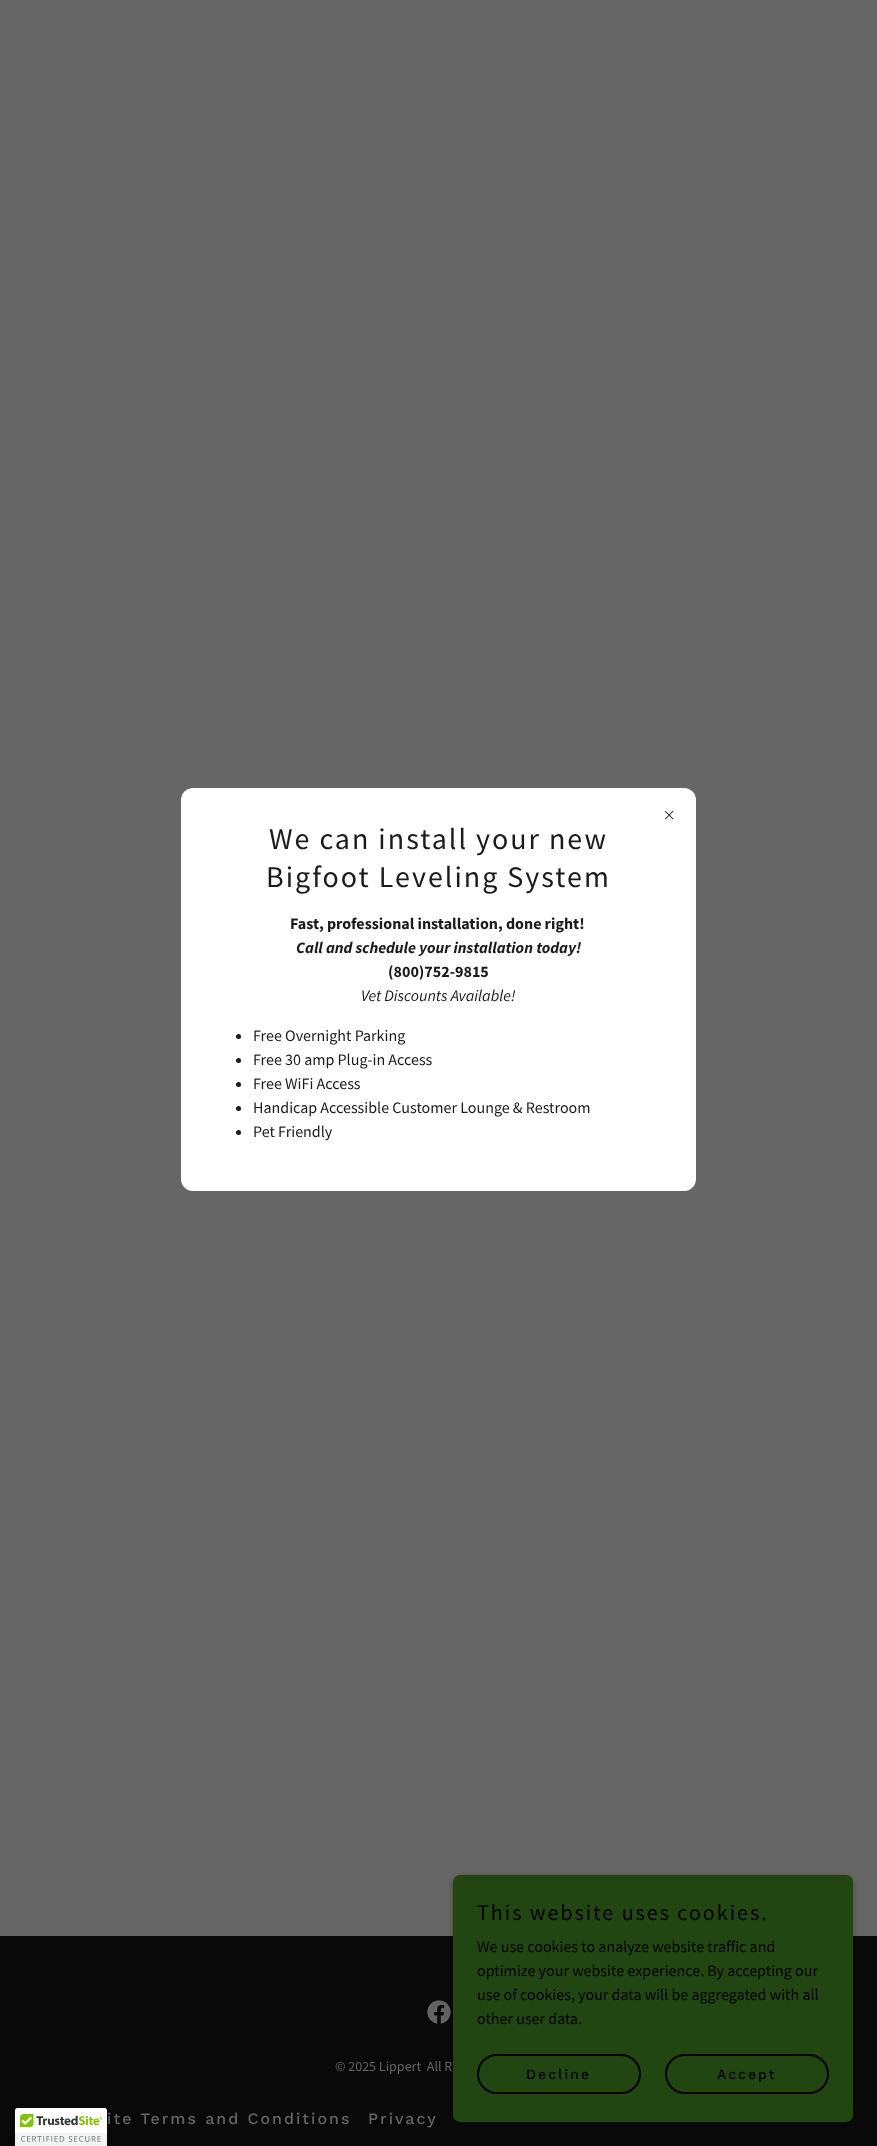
<svg xmlns="http://www.w3.org/2000/svg" width="877" height="2146" viewBox="0 0 877 2146">
  <defs>
    <filter id="blur1" x="-50%" y="-200%" width="200%" height="500%"><feGaussianBlur stdDeviation="3"/></filter>
  </defs>
  <rect width="100%" height="100%" fill="#090909"/>
  <image x="15" y="2108" width="92" height="38" href="img1.png"/>
  <rect x="0" y="0" width="877" height="1936" fill="#666666"/>
  <rect x="181" y="788" width="515" height="403" rx="12" fill="#ffffff"/>
  <image x="665" y="811" width="9" height="9" href="img2.png"/>
  <text x="269" y="849" font-family="Source Sans Pro" font-size="30" letter-spacing="2" fill="#1b1b1b">We can install your new</text>
  <text x="266" y="887" font-family="Source Sans Pro" font-size="30" letter-spacing="2" fill="#1b1b1b">Bigfoot Leveling System</text>
  <text x="290" y="929" font-family="Source Sans Pro" font-size="16" font-weight="bold" fill="#1b1b1b">Fast, professional installation, done right!</text>
  <text x="296" y="953" font-family="Source Sans Pro" font-size="16" font-weight="bold" font-style="italic" fill="#1b1b1b">Call and schedule your installation today!</text>
  <text x="388" y="977" font-family="Source Sans Pro" font-size="16" font-weight="bold" fill="#1b1b1b">(800)752-9815</text>
  <text x="361" y="1001" font-family="Source Sans Pro" font-size="16" font-style="italic" fill="#1b1b1b">Vet Discounts Available!</text>
  <circle cx="238.5" cy="1036.5" r="2.5" fill="#1b1b1b"/>
  <text x="253" y="1041" font-family="Source Sans Pro" font-size="16" fill="#1b1b1b">Free Overnight Parking</text>
  <circle cx="238.5" cy="1060.5" r="2.5" fill="#1b1b1b"/>
  <text x="253" y="1065" font-family="Source Sans Pro" font-size="16" fill="#1b1b1b">Free 30 amp Plug-in Access</text>
  <circle cx="238.5" cy="1084.5" r="2.5" fill="#1b1b1b"/>
  <text x="253" y="1089" font-family="Source Sans Pro" font-size="16" fill="#1b1b1b">Free WiFi Access</text>
  <circle cx="238.5" cy="1108.5" r="2.5" fill="#1b1b1b"/>
  <text x="253" y="1113" font-family="Source Sans Pro" font-size="16" fill="#1b1b1b">Handicap Accessible Customer Lounge &amp; Restroom</text>
  <circle cx="238.5" cy="1132.5" r="2.5" fill="#1b1b1b"/>
  <text x="253" y="1137" font-family="Source Sans Pro" font-size="16" fill="#1b1b1b">Pet Friendly</text>
  <image x="427" y="2000" width="24" height="24" href="img3.png"/>
  <rect x="453" y="1877" width="400" height="247" rx="7" fill="#000000" fill-opacity="0.3" filter="url(#blur1)"/>
  <rect x="453" y="1875" width="400" height="247" rx="7" fill="#224612"/>
  <text x="477" y="1920" font-family="Source Sans Pro" font-size="22" letter-spacing="2" fill="#000000">This website uses cookies.</text>
  <text x="477" y="1952" font-family="Source Sans Pro" font-size="16" fill="#000000">We use cookies to analyze website traffic and</text>
  <text x="477" y="1976" font-family="Source Sans Pro" font-size="16" fill="#000000">optimize your website experience. By accepting our</text>
  <text x="477" y="2000" font-family="Source Sans Pro" font-size="16" fill="#000000">use of cookies, your data will be aggregated with all</text>
  <text x="477" y="2024" font-family="Source Sans Pro" font-size="16" fill="#000000">other user data.</text>
  <rect x="478" y="2055" width="162" height="38" rx="19" fill="none" stroke="#000000" stroke-width="2"/>
  <text x="526" y="2079" font-family="Work Sans" font-size="14" font-weight="500" letter-spacing="2" fill="#000000">Decline</text>
  <rect x="666" y="2055" width="162" height="38" rx="19" fill="none" stroke="#000000" stroke-width="2"/>
  <text x="717" y="2079" font-family="Work Sans" font-size="14" font-weight="500" letter-spacing="2" fill="#000000">Accept</text>
  <text x="335" y="2071" font-family="Source Sans Pro" font-size="14" fill="#636363" xml:space="preserve">© 2025 Lippert  All R</text>
  <text x="107" y="2124" font-family="Work Sans" font-size="16" font-weight="500" letter-spacing="2" fill="#636363">ite Terms and Conditions</text>
  <text x="368" y="2124" font-family="Work Sans" font-size="16" font-weight="500" letter-spacing="2" fill="#636363">Privacy</text>
</svg>
